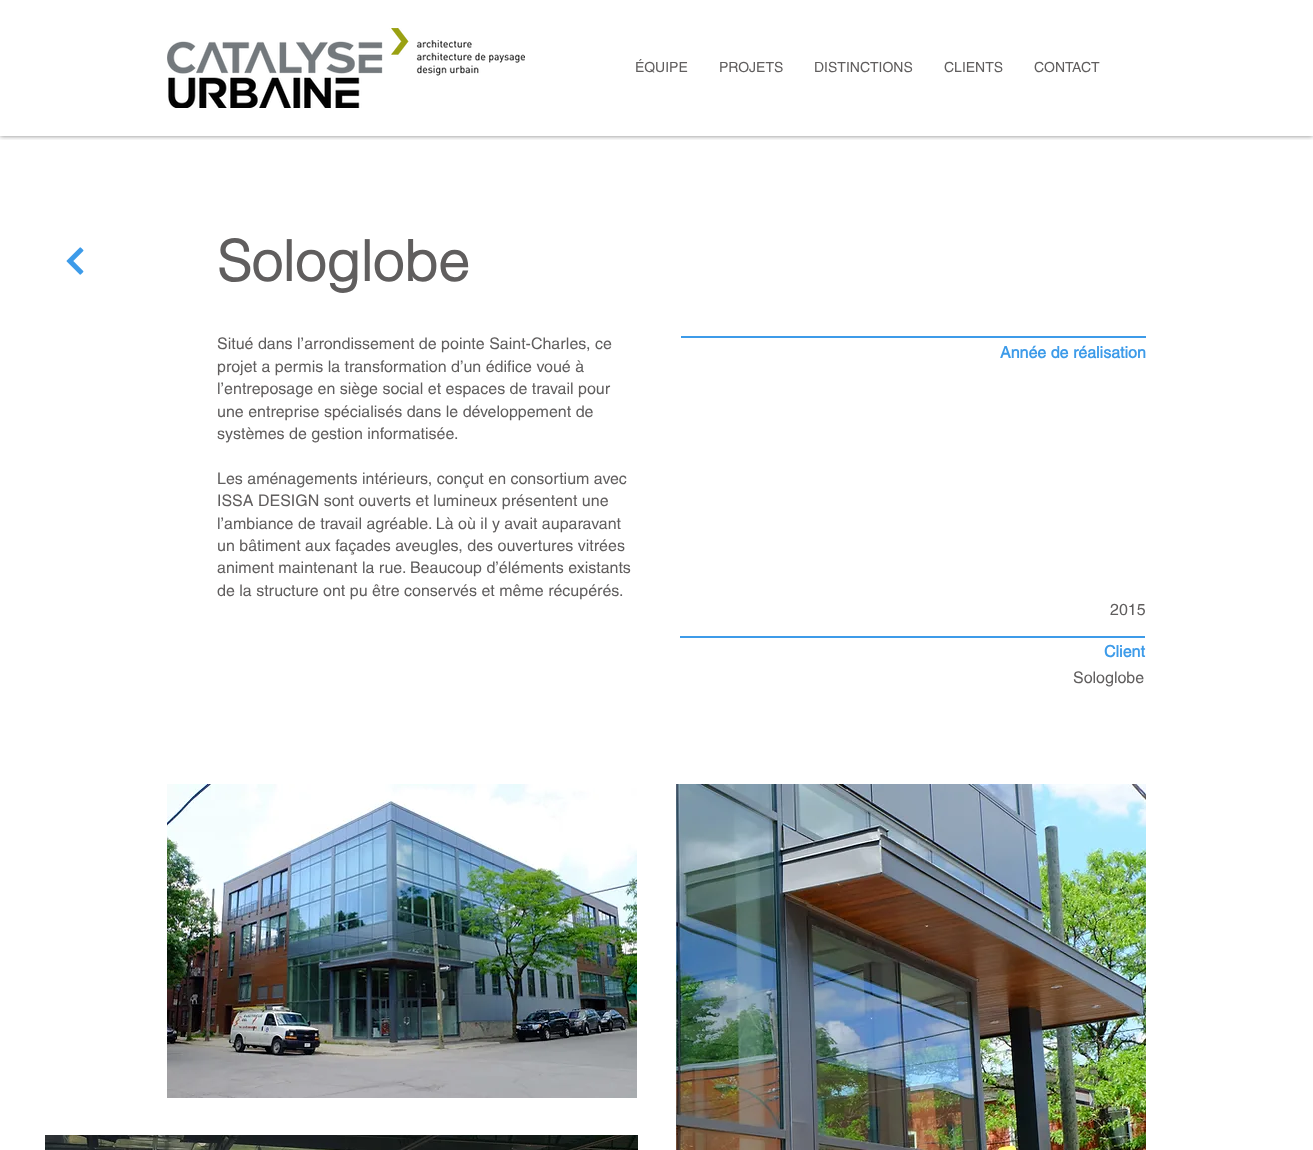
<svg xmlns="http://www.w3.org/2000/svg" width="1313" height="1150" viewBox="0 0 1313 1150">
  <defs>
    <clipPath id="clip1"><rect x="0" y="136" width="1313" height="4"/></clipPath>
    <filter id="blur1" x="-50%" y="-200%" width="200%" height="500%"><feGaussianBlur stdDeviation="2.5"/></filter>
  </defs>
  <rect width="100%" height="100%" fill="#ffffff"/>
  <g clip-path="url(#clip1)">
    <rect x="0" y="0" width="1313" height="136" fill="#000000" fill-opacity="0.5" filter="url(#blur1)"/>
  </g>
  <image x="167" y="28" width="358" height="80" href="img1.png"/>
  <text x="635" y="72" font-family="helvetica" font-size="14" fill="#605e5e">ÉQUIPE</text>
  <text x="719" y="72" font-family="helvetica" font-size="14" fill="#605e5e">PROJETS</text>
  <text x="814" y="72" font-family="helvetica" font-size="14" fill="#605e5e">DISTINCTIONS</text>
  <text x="944" y="72" font-family="helvetica" font-size="14" fill="#605e5e">CLIENTS</text>
  <text x="1034" y="72" font-family="helvetica" font-size="14" fill="#605e5e">CONTACT</text>
  <image x="66" y="247" width="18" height="28" href="img2.png"/>
  <text x="217" y="281" font-family="helvetica" font-size="56" font-weight="bold" fill="#605e5e">Sologlobe</text>
  <text x="217" y="349" font-family="helvetica" font-size="16" fill="#605e5e">Situé dans l’arrondissement de pointe Saint-Charles, ce</text>
  <text x="217" y="372" font-family="helvetica" font-size="16" fill="#605e5e">projet a permis la transformation d’un édifice voué à</text>
  <text x="217" y="394" font-family="helvetica" font-size="16" fill="#605e5e">l’entreposage en siège social et espaces de travail pour</text>
  <text x="217" y="417" font-family="helvetica" font-size="16" fill="#605e5e">une entreprise spécialisés dans le développement de</text>
  <text x="217" y="439" font-family="helvetica" font-size="16" fill="#605e5e">systèmes de gestion informatisée.</text>
  <text x="217" y="484" font-family="helvetica" font-size="16" fill="#605e5e">Les aménagements intérieurs, conçut en consortium avec</text>
  <text x="217" y="506" font-family="helvetica" font-size="16" fill="#605e5e">ISSA DESIGN sont ouverts et lumineux présentent une</text>
  <text x="217" y="529" font-family="helvetica" font-size="16" fill="#605e5e">l’ambiance de travail agréable. Là où il y avait auparavant</text>
  <text x="217" y="551" font-family="helvetica" font-size="16" fill="#605e5e">un bâtiment aux façades aveugles, des ouvertures vitrées</text>
  <text x="217" y="573" font-family="helvetica" font-size="16" fill="#605e5e">animent maintenant la rue. Beaucoup d’éléments existants</text>
  <text x="217" y="596" font-family="helvetica" font-size="16" fill="#605e5e">de la structure ont pu être conservés et même récupérés.</text>
  <rect x="681" y="336" width="465" height="2" fill="#3d9be9"/>
  <text x="1000" y="358" font-family="'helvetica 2'" font-size="16" font-weight="bold" fill="#3d9be9">Année de réalisation</text>
  <text x="1110" y="615" font-family="helvetica" font-size="16" fill="#605e5e">2015</text>
  <rect x="680" y="636" width="465" height="2" fill="#3d9be9"/>
  <text x="1104" y="657" font-family="'helvetica 2'" font-size="16" font-weight="bold" fill="#3d9be9">Client</text>
  <text x="1073" y="683" font-family="helvetica" font-size="16" fill="#605e5e">Sologlobe</text>
  <image x="167" y="784" width="470" height="314" href="img3.png"/>
  <image x="676" y="784" width="470" height="366" href="img4.png"/>
  <image x="45" y="1135" width="593" height="15" href="img5.png"/>
</svg>
